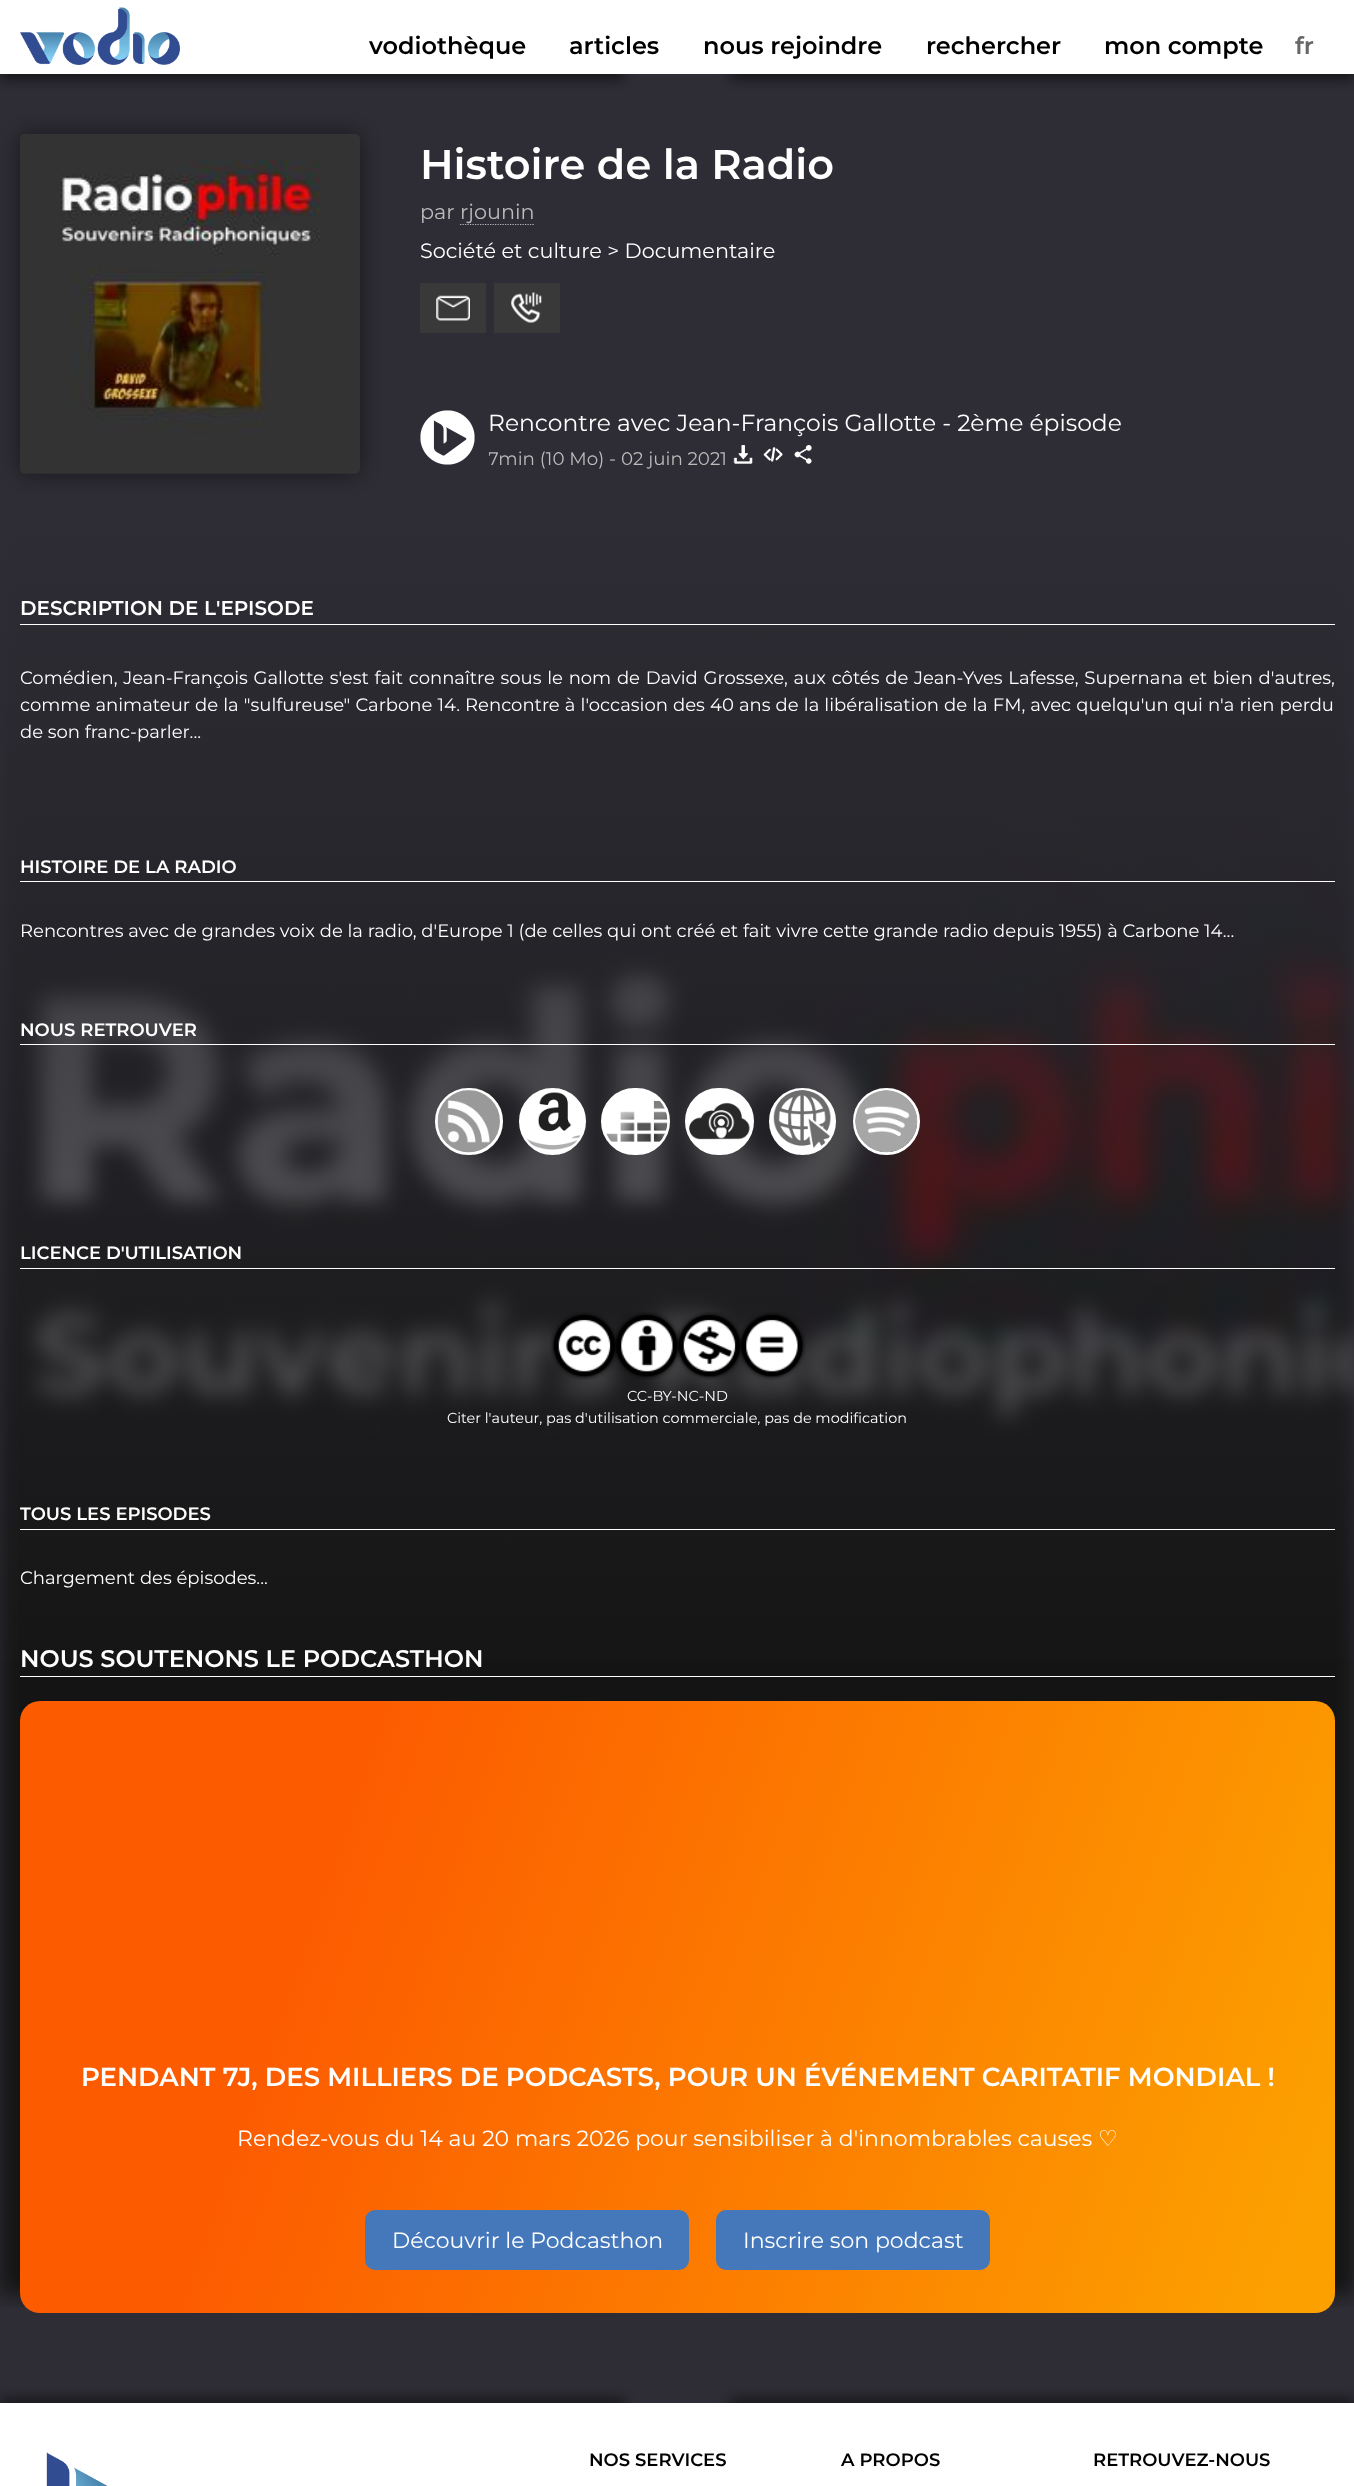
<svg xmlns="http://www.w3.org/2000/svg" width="1354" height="2486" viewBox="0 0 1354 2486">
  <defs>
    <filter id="blur1" x="-50%" y="-200%" width="200%" height="500%"><feGaussianBlur stdDeviation="6.5"/></filter>
    <linearGradient id="g1" gradientUnits="userSpaceOnUse" x1="677" y1="0" x2="678" y2="2486"><stop offset="0.2" stop-color="#2e2d35"/><stop offset="0.3" stop-color="#2e2d35" stop-opacity="0.82"/><stop offset="0.7" stop-color="#2e2d35" stop-opacity="0"/></linearGradient>
    <filter id="blur2" x="-50%" y="-200%" width="200%" height="500%"><feGaussianBlur stdDeviation="12.5"/></filter>
    <clipPath id="clip1"><rect x="489" y="441" width="742" height="33"/></clipPath>
    <linearGradient id="g2" gradientUnits="userSpaceOnUse" x1="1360" y1="2240" x2="-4.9" y2="1774"><stop offset="0.04" stop-color="#fca000"/><stop offset="0.77" stop-color="#fc5b00"/></linearGradient>
  </defs>
  <rect width="100%" height="100%" fill="#2e2d35"/>
  <rect x="0" y="55" width="625" height="25" fill="#000000" fill-opacity="0.5" filter="url(#blur1)"/>
  <rect x="730" y="55" width="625" height="25" fill="#000000" fill-opacity="0.5" filter="url(#blur1)"/>
  <rect x="0" y="0" width="1354" height="74" fill="#ffffff"/>
  <image x="20" y="7" width="160" height="58" href="img1.png"/>
  <text x="369" y="54" font-family="Montserrat" font-size="24" font-weight="600" fill="#000000">vodiothèque</text>
  <text x="569" y="54" font-family="Montserrat" font-size="24" font-weight="600" fill="#000000">articles</text>
  <text x="703" y="54" font-family="Montserrat" font-size="24" font-weight="600" fill="#000000">nous rejoindre</text>
  <text x="926" y="54" font-family="Montserrat" font-size="24" font-weight="600" fill="#000000">rechercher</text>
  <text x="1104" y="54" font-family="Montserrat" font-size="24" font-weight="600" fill="#000000">mon compte</text>
  <text x="1295" y="54" font-family="Montserrat" font-size="24" font-weight="600" fill="#666666">fr</text>
  <image x="0" y="505" width="1354" height="1802" href="img16.png"/>
  <rect x="0" y="505" width="1354" height="1155" fill="url(#g1)"/>
  <rect x="20" y="134" width="340" height="340" rx="5" fill="#000000" fill-opacity="0.5" filter="url(#blur2)"/>
  <image x="20" y="134" width="340" height="340" href="img2.png"/>
  <text x="420" y="179" font-family="Montserrat" font-size="41.5" font-weight="600" fill="#ffffff">Histoire de la Radio</text>
  <text x="420" y="219" font-family="Montserrat" font-size="20.75" fill="#bbbbbb">par</text>
  <path d="M460 224.5H535" fill="none" stroke="#bbbbbb" stroke-width="1.2" stroke-dasharray="1.25 1.25"/>
  <text x="460" y="219" font-family="Montserrat" font-size="20.75" fill="#bbbbbb">rjounin</text>
  <text x="420" y="258" font-family="Montserrat" font-size="20.75" fill="#ffffff">Société et culture &gt; Documentaire</text>
  <rect x="420" y="283" width="66" height="50" fill="#393939"/>
  <image x="436" y="295" width="34" height="26" href="img3.png"/>
  <rect x="494" y="283" width="66" height="50" fill="#393939"/>
  <image x="511" y="292" width="31" height="31" href="img4.png"/>
  <image x="420" y="410" width="55" height="55" href="img5.png"/>
  <text x="488" y="431" font-family="Montserrat" font-size="23.4" fill="#ffffff">Rencontre avec Jean-François Gallotte - 2ème épisode</text>
  <g clip-path="url(#clip1)">
    <text x="488" y="465" font-family="Montserrat" font-size="18.25" fill="#bbbbbb">7min (10 Mo) -</text>
  </g>
  <text x="621" y="465" font-family="Montserrat" font-size="18.25" fill="#bbbbbb">02 juin 2021</text>
  <image x="733" y="445" width="20" height="19" href="img6.png"/>
  <image x="763" y="447" width="20" height="15" href="img7.png"/>
  <image x="794" y="445" width="18" height="19" href="img8.png"/>
  <rect x="20" y="624" width="1315" height="1" fill="#ffffff"/>
  <text x="20" y="615" font-family="Montserrat" font-size="20" font-weight="600" fill="#ffffff">DESCRIPTION DE L'EPISODE</text>
  <text x="20" y="684" word-spacing="1" font-family="Montserrat" font-size="18" fill="#ffffff">Comédien, Jean-François Gallotte s'est fait connaître sous le nom de David Grossexe, aux côtés de Jean-Yves Lafesse, Supernana et bien d'autres,</text>
  <text x="20" y="711" word-spacing="0.4" font-family="Montserrat" font-size="18" fill="#ffffff">comme animateur de la "sulfureuse" Carbone 14. Rencontre à l'occasion des 40 ans de la libéralisation de la FM, avec quelqu'un qui n'a rien perdu</text>
  <text x="20" y="738" font-family="Montserrat" font-size="18" fill="#ffffff">de son franc-parler...</text>
  <rect x="20" y="881" width="1315" height="1" fill="#ffffff"/>
  <text x="20" y="873" font-family="Montserrat" font-size="18" font-weight="600" fill="#ffffff">HISTOIRE DE LA RADIO</text>
  <text x="20" y="937" font-family="Montserrat" font-size="18" fill="#ffffff">Rencontres avec de grandes voix de la radio, d'Europe 1 (de celles qui ont créé et fait vivre cette grande radio depuis 1955) à Carbone 14...</text>
  <rect x="20" y="1044" width="1315" height="1" fill="#ffffff"/>
  <text x="20" y="1036" font-family="Montserrat" font-size="18" font-weight="600" fill="#ffffff">NOUS RETROUVER</text>
  <rect x="436.5" y="1089.5" width="65" height="64" rx="32" fill="#ffffff" stroke="#ffffff" stroke-width="3"/>
  <circle cx="552.5" cy="1121.5" r="32" fill="#ffffff" stroke="#ffffff" stroke-width="3"/>
  <rect x="602.5" y="1089.5" width="66" height="64" rx="32" fill="#ffffff" stroke="#ffffff" stroke-width="3"/>
  <rect x="686.5" y="1089.5" width="66" height="64" rx="32" fill="#ffffff" stroke="#ffffff" stroke-width="3"/>
  <circle cx="802.5" cy="1121.5" r="32" fill="#ffffff" stroke="#ffffff" stroke-width="3"/>
  <circle cx="886.5" cy="1121.5" r="32" fill="none" stroke="#ffffff" stroke-width="3"/>
  <image x="437" y="1090" width="63" height="63" href="img9.png"/>
  <image x="526" y="1092" width="55" height="58" href="img10.png"/>
  <image x="606" y="1100" width="62" height="42" href="img11.png"/>
  <image x="689" y="1102" width="61" height="38" href="img12.png"/>
  <image x="773" y="1090" width="58" height="58" href="img13.png"/>
  <image x="855" y="1090" width="63" height="63" href="img14.png"/>
  <rect x="20" y="1268" width="1315" height="1" fill="#ffffff"/>
  <text x="20" y="1259" font-family="Montserrat" font-size="18" font-weight="600" fill="#ffffff">LICENCE D'UTILISATION</text>
  <image x="550" y="1312" width="256" height="68" href="img15.png"/>
  <text x="627" y="1401" font-family="Montserrat" font-size="14.4" fill="#ffffff">CC-BY-NC-ND</text>
  <text x="447" y="1423" font-family="Montserrat" font-size="14.4" fill="#ffffff">Citer l'auteur, pas d'utilisation commerciale, pas de modification</text>
  <rect x="20" y="1529" width="1315" height="1" fill="#ffffff"/>
  <text x="20" y="1520" font-family="Montserrat" font-size="18" font-weight="600" fill="#ffffff">TOUS LES EPISODES</text>
  <text x="20" y="1584" font-family="Montserrat" font-size="18" fill="#ffffff">Chargement des épisodes...</text>
  <rect x="20" y="1676" width="1315" height="1" fill="#ffffff"/>
  <text x="20" y="1667" font-family="Montserrat" font-size="24" font-weight="600" fill="#ffffff">NOUS SOUTENONS LE PODCASTHON</text>
  <rect x="20" y="1701" width="1315" height="612" rx="20" fill="url(#g2)"/>
  <text x="81" y="2086" font-family="Montserrat" font-size="26" font-weight="600" fill="#ffffff">PENDANT 7J, DES MILLIERS DE PODCASTS, POUR UN ÉVÉNEMENT CARITATIF MONDIAL !</text>
  <text x="237" y="2146" font-family="Montserrat" font-size="22" fill="#ffffff">Rendez-vous du 14 au 20 mars 2026 pour sensibiliser à d'innombrables causes</text>
  <text x="1098" y="2146" font-family="DejaVu Sans" font-size="22" fill="#ffffff">♡</text>
  <rect x="365" y="2210" width="324" height="60" rx="10" fill="#4478bb"/>
  <text x="392" y="2248" font-family="Montserrat" font-size="22" fill="#ffffff">Découvrir le Podcasthon</text>
  <rect x="716" y="2210" width="274" height="60" rx="10" fill="#4478bb"/>
  <text x="743" y="2248" font-family="Montserrat" font-size="22" fill="#ffffff">Inscrire son podcast</text>
  <rect x="0" y="2398" width="625" height="25" fill="#000000" fill-opacity="0.5" filter="url(#blur1)"/>
  <rect x="730" y="2398" width="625" height="25" fill="#000000" fill-opacity="0.5" filter="url(#blur1)"/>
  <rect x="0" y="2403" width="1354" height="83" fill="#ffffff"/>
  <image x="46" y="2452" width="62" height="34" href="img17.png"/>
  <text x="589" y="2466" font-family="Montserrat" font-size="18" font-weight="600" fill="#000000">NOS SERVICES</text>
  <text x="841" y="2466" font-family="Montserrat" font-size="18" font-weight="600" fill="#000000">A PROPOS</text>
  <text x="1093" y="2466" font-family="Montserrat" font-size="18" font-weight="600" fill="#000000">RETROUVEZ-NOUS</text>
</svg>
